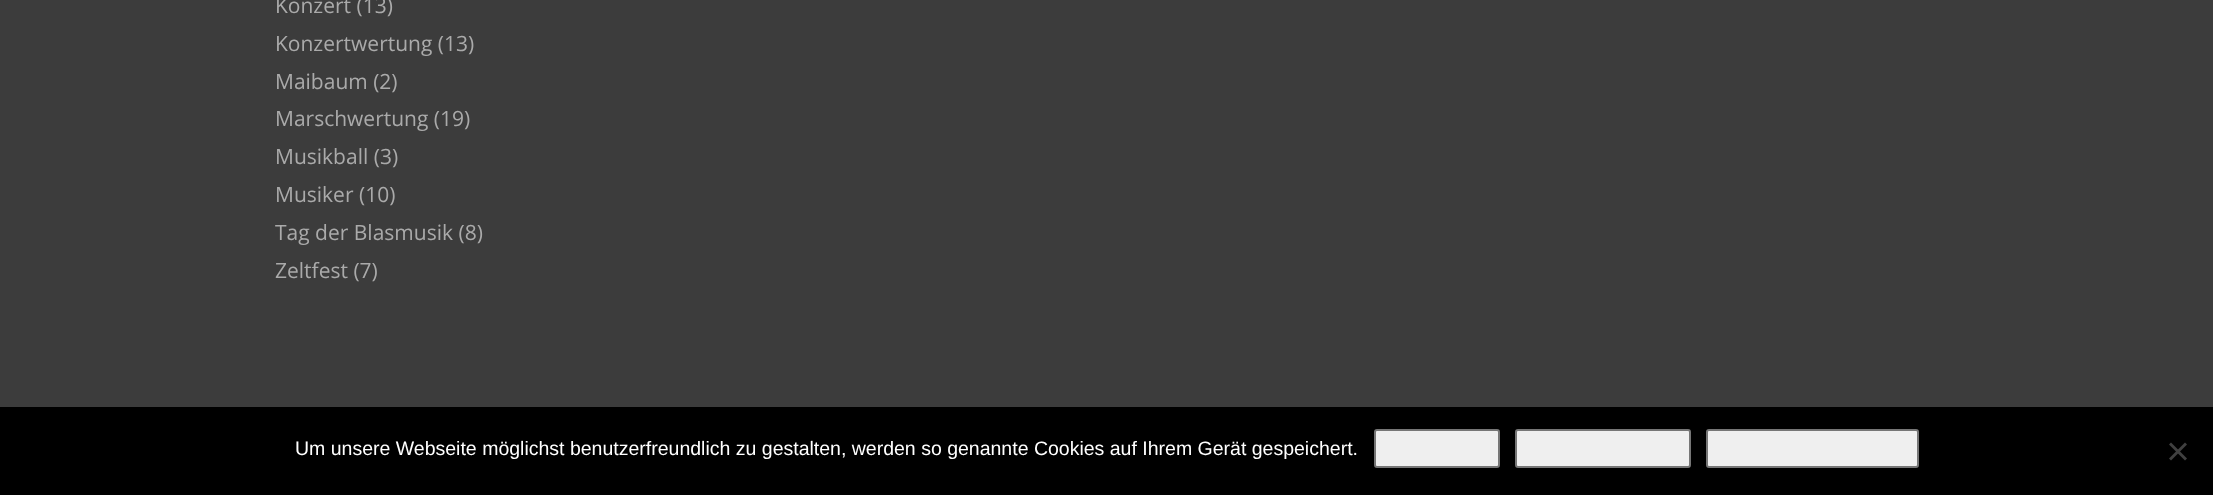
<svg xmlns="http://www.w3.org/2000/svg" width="2213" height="495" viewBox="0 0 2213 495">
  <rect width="100%" height="100%" fill="#3c3c3c"/>
  <text x="275" y="13" font-family="Open Sans" font-size="21" fill="#aaaaaa">Konzert (13)</text>
  <text x="275" y="51" font-family="Open Sans" font-size="21" fill="#aaaaaa">Konzertwertung (13)</text>
  <text x="275" y="89" font-family="Open Sans" font-size="21" fill="#aaaaaa">Maibaum (2)</text>
  <text x="275" y="126" font-family="Open Sans" font-size="21" fill="#aaaaaa">Marschwertung (19)</text>
  <text x="275" y="164" font-family="Open Sans" font-size="21" fill="#aaaaaa">Musikball (3)</text>
  <text x="275" y="202" font-family="Open Sans" font-size="21" fill="#aaaaaa">Musiker (10)</text>
  <text x="275" y="240" font-family="Open Sans" font-size="21" fill="#aaaaaa">Tag der Blasmusik (8)</text>
  <text x="275" y="278" font-family="Open Sans" font-size="21" fill="#aaaaaa">Zeltfest (7)</text>
  <rect x="0" y="407" width="2213" height="88" fill="#000000"/>
  <text x="295" y="455" font-family="Liberation Sans" font-size="19.5" fill="#ffffff">Um unsere Webseite möglichst benutzerfreundlich zu gestalten, werden so genannte Cookies auf Ihrem Gerät gespeichert.</text>
  <rect x="1375" y="430" width="124" height="37" rx="2" fill="#efefef" stroke="#767676" stroke-width="2"/>
  <rect x="1516" y="430" width="174" height="37" rx="2" fill="#efefef" stroke="#767676" stroke-width="2"/>
  <rect x="1707" y="430" width="211" height="37" rx="2" fill="#efefef" stroke="#767676" stroke-width="2"/>
  <path d="M2185 442.5L2187 444.5L2171 460.5L2169 458.5Z" fill="#404040"/>
  <path d="M2169 444.5L2171 442.5L2187 458.5L2185 460.5Z" fill="#404040"/>
</svg>
